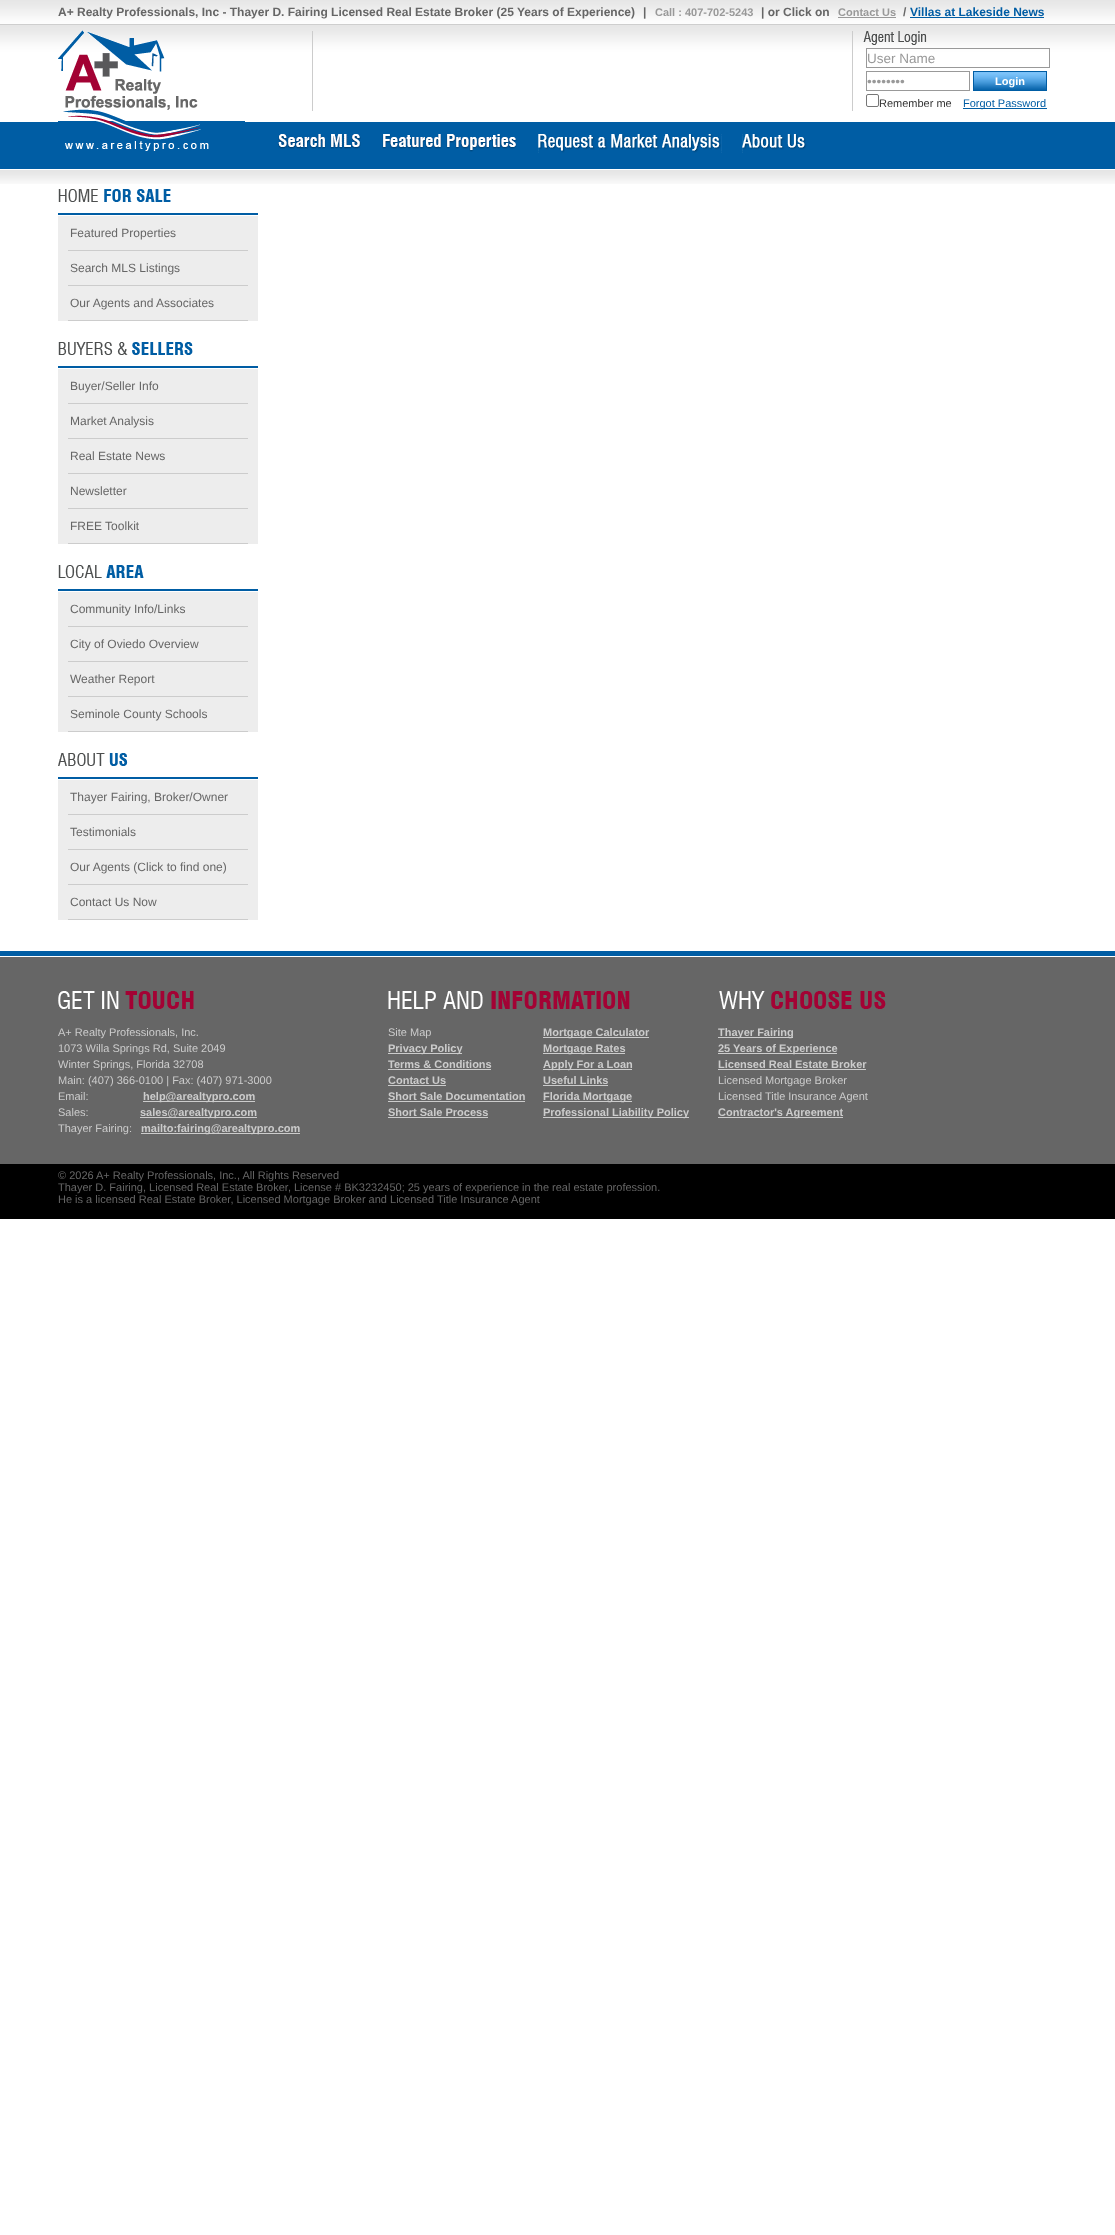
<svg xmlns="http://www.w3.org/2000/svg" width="1115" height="2235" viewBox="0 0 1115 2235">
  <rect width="100%" height="100%" fill="#ffffff"/>
  <image x="0" y="0" width="1115" height="184" href="img1.png"/>
  <text x="58" y="16" font-family="Liberation Sans" font-size="12" font-weight="bold" fill="#666666">A+ Realty Professionals, Inc - Thayer D. Fairing Licensed Real Estate Broker (25 Years of Experience)</text>
  <text x="643" y="16" font-family="Liberation Sans" font-size="12" font-weight="bold" fill="#666666">|</text>
  <text x="655" y="16" font-family="Liberation Sans" font-size="11" font-weight="bold" fill="#999999">Call : 407-702-5243</text>
  <text x="761" y="16" font-family="Liberation Sans" font-size="12" font-weight="bold" fill="#666666">| or Click on</text>
  <text x="838" y="16" font-family="Liberation Sans" font-size="11" font-weight="bold" fill="#999999">Contact Us</text>
  <rect x="838" y="17" width="58" height="1" fill="#999999"/>
  <text x="903" y="16" font-family="Liberation Sans" font-size="12" font-weight="bold" fill="#666666">/</text>
  <text x="910" y="16" font-family="Liberation Sans" font-size="12" font-weight="bold" fill="#005da4">Villas at Lakeside News</text>
  <rect x="910" y="17" width="134" height="1" fill="#005da4"/>
  <image x="58" y="30" width="140" height="91" href="img2.png"/>
  <rect x="312" y="31" width="1" height="80" fill="#cccccc"/>
  <rect x="852" y="31" width="1" height="80" fill="#cccccc"/>
  <image x="863" y="31" width="64" height="14" href="img3.png"/>
  <rect x="866.5" y="48.5" width="183" height="19" fill="none" stroke="#999999"/>
  <text x="867" y="63" font-family="Liberation Sans" font-size="13.5" fill="#999999">User Name</text>
  <rect x="866.5" y="71.5" width="103" height="19" fill="none" stroke="#999999"/>
  <text x="867" y="86" font-family="Liberation Sans" font-size="13.5" fill="#999999">••••••••</text>
  <image x="974" y="72" width="72" height="18" href="img4.png"/>
  <rect x="973.5" y="71.5" width="73" height="19" fill="none" stroke="#005da4"/>
  <text x="995" y="85" font-family="Liberation Sans" font-size="11" font-weight="bold" fill="#ffffff">Login</text>
  <rect x="866.5" y="94.5" width="12" height="12" rx="1.5" fill="none" stroke="#767676"/>
  <text x="879" y="107" font-family="Liberation Sans" font-size="11" fill="#333333">Remember me</text>
  <rect x="963" y="108" width="84" height="1" fill="#005da4"/>
  <text x="963" y="107" font-family="Liberation Sans" font-size="11" fill="#005da4">Forgot Password</text>
  <image x="58" y="121" width="187" height="30" href="img5.png"/>
  <image x="278" y="134" width="83" height="15" href="img6.png"/>
  <image x="382" y="134" width="135" height="18" href="img7.png"/>
  <image x="538" y="134" width="184" height="19" href="img8.png"/>
  <image x="742" y="134" width="65" height="19" href="img9.png"/>
  <rect x="58" y="213" width="200" height="2" fill="#005da4"/>
  <image x="58" y="189" width="113" height="13" href="img10.png"/>
  <rect x="58" y="216" width="200" height="105" fill="#ededed"/>
  <rect x="68" y="250" width="180" height="1" fill="#cccccc"/>
  <text x="70" y="237" font-family="Liberation Sans" font-size="12" fill="#666666">Featured Properties</text>
  <rect x="68" y="285" width="180" height="1" fill="#cccccc"/>
  <text x="70" y="272" font-family="Liberation Sans" font-size="12" fill="#666666">Search MLS Listings</text>
  <rect x="68" y="320" width="180" height="1" fill="#cccccc"/>
  <text x="70" y="307" font-family="Liberation Sans" font-size="12" fill="#666666">Our Agents and Associates</text>
  <rect x="58" y="366" width="200" height="2" fill="#005da4"/>
  <image x="58" y="342" width="135" height="13" href="img11.png"/>
  <rect x="58" y="369" width="200" height="175" fill="#ededed"/>
  <rect x="68" y="403" width="180" height="1" fill="#cccccc"/>
  <text x="70" y="390" font-family="Liberation Sans" font-size="12" fill="#666666">Buyer/Seller Info</text>
  <rect x="68" y="438" width="180" height="1" fill="#cccccc"/>
  <text x="70" y="425" font-family="Liberation Sans" font-size="12" fill="#666666">Market Analysis</text>
  <rect x="68" y="473" width="180" height="1" fill="#cccccc"/>
  <text x="70" y="460" font-family="Liberation Sans" font-size="12" fill="#666666">Real Estate News</text>
  <rect x="68" y="508" width="180" height="1" fill="#cccccc"/>
  <text x="70" y="495" font-family="Liberation Sans" font-size="12" fill="#666666">Newsletter</text>
  <rect x="68" y="543" width="180" height="1" fill="#cccccc"/>
  <text x="70" y="530" font-family="Liberation Sans" font-size="12" fill="#666666">FREE Toolkit</text>
  <rect x="58" y="589" width="200" height="2" fill="#005da4"/>
  <image x="58" y="565" width="86" height="13" href="img12.png"/>
  <rect x="58" y="592" width="200" height="140" fill="#ededed"/>
  <rect x="68" y="626" width="180" height="1" fill="#cccccc"/>
  <text x="70" y="613" font-family="Liberation Sans" font-size="12" fill="#666666">Community Info/Links</text>
  <rect x="68" y="661" width="180" height="1" fill="#cccccc"/>
  <text x="70" y="648" font-family="Liberation Sans" font-size="12" fill="#666666">City of Oviedo Overview</text>
  <rect x="68" y="696" width="180" height="1" fill="#cccccc"/>
  <text x="70" y="683" font-family="Liberation Sans" font-size="12" fill="#666666">Weather Report</text>
  <rect x="68" y="731" width="180" height="1" fill="#cccccc"/>
  <text x="70" y="718" font-family="Liberation Sans" font-size="12" fill="#666666">Seminole County Schools</text>
  <rect x="58" y="777" width="200" height="2" fill="#005da4"/>
  <image x="58" y="753" width="70" height="13" href="img13.png"/>
  <rect x="58" y="780" width="200" height="140" fill="#ededed"/>
  <rect x="68" y="814" width="180" height="1" fill="#cccccc"/>
  <text x="70" y="801" font-family="Liberation Sans" font-size="12" fill="#666666">Thayer Fairing, Broker/Owner</text>
  <rect x="68" y="849" width="180" height="1" fill="#cccccc"/>
  <text x="70" y="836" font-family="Liberation Sans" font-size="12" fill="#666666">Testimonials</text>
  <rect x="68" y="884" width="180" height="1" fill="#cccccc"/>
  <text x="70" y="871" font-family="Liberation Sans" font-size="12" fill="#666666">Our Agents (Click to find one)</text>
  <rect x="68" y="919" width="180" height="1" fill="#cccccc"/>
  <text x="70" y="906" font-family="Liberation Sans" font-size="12" fill="#666666">Contact Us Now</text>
  <image x="0" y="951" width="1115" height="268" href="img14.png"/>
  <image x="58" y="991" width="136" height="18" href="img15.png"/>
  <text x="58" y="1036" font-family="Liberation Sans" font-size="11" fill="#cccccc">A+ Realty Professionals, Inc.</text>
  <text x="58" y="1052" font-family="Liberation Sans" font-size="11" fill="#cccccc">1073 Willa Springs Rd, Suite 2049</text>
  <text x="58" y="1068" font-family="Liberation Sans" font-size="11" fill="#cccccc">Winter Springs, Florida 32708</text>
  <text x="58" y="1084" font-family="Liberation Sans" font-size="11" fill="#cccccc">Main: (407) 366-0100 | Fax: (407) 971-3000</text>
  <text x="58" y="1100" font-family="Liberation Sans" font-size="11" fill="#cccccc">Email:</text>
  <rect x="143" y="1101" width="112" height="1" fill="#cccccc"/>
  <text x="143" y="1100" font-family="Liberation Sans" font-size="11" font-weight="bold" fill="#cccccc">help@arealtypro.com</text>
  <text x="58" y="1116" font-family="Liberation Sans" font-size="11" fill="#cccccc">Sales:</text>
  <rect x="140" y="1117" width="117" height="1" fill="#cccccc"/>
  <text x="140" y="1116" font-family="Liberation Sans" font-size="11" font-weight="bold" fill="#cccccc">sales@arealtypro.com</text>
  <text x="58" y="1132" font-family="Liberation Sans" font-size="11" fill="#cccccc">Thayer Fairing:</text>
  <rect x="141" y="1133" width="159" height="1" fill="#cccccc"/>
  <text x="141" y="1132" font-family="Liberation Sans" font-size="11" font-weight="bold" fill="#cccccc">mailto:fairing@arealtypro.com</text>
  <image x="388" y="991" width="242" height="18" href="img16.png"/>
  <text x="388" y="1036" font-family="Liberation Sans" font-size="11" fill="#cccccc">Site Map</text>
  <rect x="388" y="1053" width="74" height="1" fill="#cccccc"/>
  <text x="388" y="1052" font-family="Liberation Sans" font-size="11" font-weight="bold" fill="#cccccc">Privacy Policy</text>
  <text x="388" y="1068" font-family="Liberation Sans" font-size="11" font-weight="bold" fill="#cccccc">Terms &amp; Conditions</text>
  <rect x="388" y="1069" width="103" height="1" fill="#cccccc"/>
  <text x="388" y="1084" font-family="Liberation Sans" font-size="11" font-weight="bold" fill="#cccccc">Contact Us</text>
  <rect x="388" y="1085" width="58" height="1" fill="#cccccc"/>
  <text x="388" y="1100" font-family="Liberation Sans" font-size="11" font-weight="bold" fill="#cccccc">Short Sale Documentation</text>
  <rect x="388" y="1101" width="137" height="1" fill="#cccccc"/>
  <text x="388" y="1116" font-family="Liberation Sans" font-size="11" font-weight="bold" fill="#cccccc">Short Sale Process</text>
  <rect x="388" y="1117" width="100" height="1" fill="#cccccc"/>
  <rect x="543" y="1037" width="106" height="1" fill="#cccccc"/>
  <text x="543" y="1036" font-family="Liberation Sans" font-size="11" font-weight="bold" fill="#cccccc">Mortgage Calculator</text>
  <rect x="543" y="1053" width="82" height="1" fill="#cccccc"/>
  <text x="543" y="1052" font-family="Liberation Sans" font-size="11" font-weight="bold" fill="#cccccc">Mortgage Rates</text>
  <rect x="543" y="1069" width="89" height="1" fill="#cccccc"/>
  <text x="543" y="1068" font-family="Liberation Sans" font-size="11" font-weight="bold" fill="#cccccc">Apply For a Loan</text>
  <text x="543" y="1084" font-family="Liberation Sans" font-size="11" font-weight="bold" fill="#cccccc">Useful Links</text>
  <rect x="543" y="1085" width="65" height="1" fill="#cccccc"/>
  <rect x="543" y="1101" width="89" height="1" fill="#cccccc"/>
  <text x="543" y="1100" font-family="Liberation Sans" font-size="11" font-weight="bold" fill="#cccccc">Florida Mortgage</text>
  <rect x="543" y="1117" width="146" height="1" fill="#cccccc"/>
  <text x="543" y="1116" font-family="Liberation Sans" font-size="11" font-weight="bold" fill="#cccccc">Professional Liability Policy</text>
  <image x="719" y="991" width="167" height="18" href="img17.png"/>
  <rect x="718" y="1037" width="75" height="1" fill="#cccccc"/>
  <text x="718" y="1036" font-family="Liberation Sans" font-size="11" font-weight="bold" fill="#cccccc">Thayer Fairing</text>
  <rect x="718" y="1053" width="119" height="1" fill="#cccccc"/>
  <text x="718" y="1052" font-family="Liberation Sans" font-size="11" font-weight="bold" fill="#cccccc">25 Years of Experience</text>
  <text x="718" y="1068" font-family="Liberation Sans" font-size="11" font-weight="bold" fill="#cccccc">Licensed Real Estate Broker</text>
  <rect x="718" y="1069" width="148" height="1" fill="#cccccc"/>
  <text x="718" y="1084" font-family="Liberation Sans" font-size="11" fill="#cccccc">Licensed Mortgage Broker</text>
  <text x="718" y="1100" font-family="Liberation Sans" font-size="11" fill="#cccccc">Licensed Title Insurance Agent</text>
  <rect x="718" y="1117" width="125" height="1" fill="#cccccc"/>
  <text x="718" y="1116" font-family="Liberation Sans" font-size="11" font-weight="bold" fill="#cccccc">Contractor's Agreement</text>
  <text x="58" y="1179" font-family="Liberation Sans" font-size="11" fill="#666666">© 2026</text>
  <text x="96" y="1179" font-family="Liberation Sans" font-size="11" fill="#666666">A+ Realty Professionals, Inc., All Rights Reserved</text>
  <text x="58" y="1191" font-family="Liberation Sans" font-size="11" fill="#666666">Thayer D. Fairing, Licensed Real Estate Broker, License # BK3232450; 25 years of experience in the real estate profession.</text>
  <text x="58" y="1203" font-family="Liberation Sans" font-size="11" fill="#666666">He is a licensed Real Estate Broker, Licensed Mortgage Broker and Licensed Title Insurance Agent</text>
</svg>
